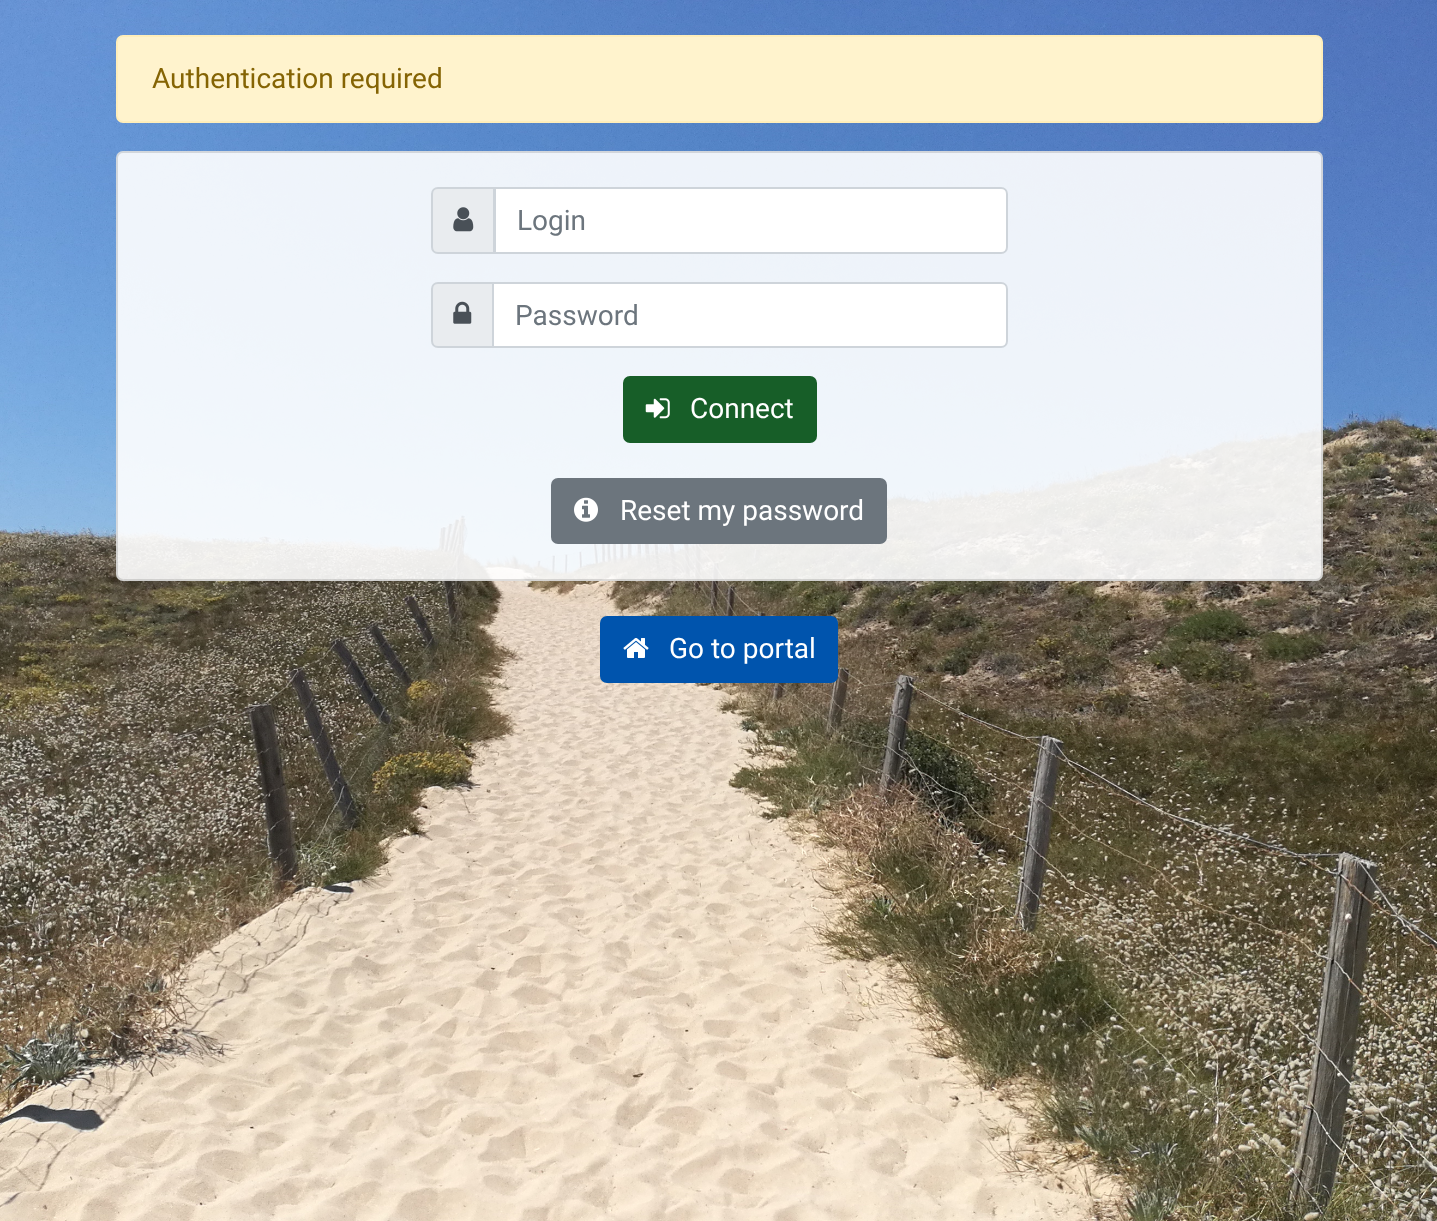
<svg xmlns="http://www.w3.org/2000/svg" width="1437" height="1221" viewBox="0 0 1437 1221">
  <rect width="100%" height="100%" fill="#ffffff"/>
  <image x="0" y="0" width="1437" height="1221" href="img1.png"/>
  <rect x="117" y="36" width="1205" height="86" rx="6" fill="#fff3cd" stroke="#ffeeba" stroke-width="2"/>
  <text x="152" y="88" font-family="Roboto" font-size="28" fill="#856404">Authentication required</text>
  <rect x="116" y="151" width="1207" height="430" rx="7" fill="#ffffff" fill-opacity="0.9"/>
  <rect x="117" y="152" width="1205" height="428" rx="6" fill="none" stroke="#000000" stroke-opacity="0.12" stroke-width="2"/>
  <path d="M438 188H494V253H438C434.5 253 432 250.5 432 247V194C432 190.5 434.5 188 438 188Z" fill="#e9ecef" stroke="#ced4da" stroke-width="2"/>
  <image x="453" y="207" width="21" height="25" href="img2.png"/>
  <path d="M495 188H1001C1004.5 188 1007 190.5 1007 194V247C1007 250.5 1004.5 253 1001 253H495Z" fill="#ffffff" stroke="#ced4da" stroke-width="2"/>
  <text x="517" y="230" font-family="Roboto" font-size="28" fill="#6c757d">Login</text>
  <path d="M438 283H493V347H438C434.5 347 432 344.5 432 341V289C432 285.5 434.5 283 438 283Z" fill="#e9ecef" stroke="#ced4da" stroke-width="2"/>
  <image x="453" y="301" width="19" height="23" href="img3.png"/>
  <path d="M493 283H1001C1004.5 283 1007 285.5 1007 289V341C1007 344.5 1004.5 347 1001 347H493Z" fill="#ffffff" stroke="#ced4da" stroke-width="2"/>
  <text x="515" y="325" font-family="Roboto" font-size="28" fill="#6c757d">Password</text>
  <rect x="624" y="377" width="192" height="65" rx="6" fill="#175e28" stroke="#175e28" stroke-width="2"/>
  <image x="645" y="398" width="25" height="21" href="img4.png"/>
  <text x="690" y="418" font-family="Roboto" font-size="28" fill="#ffffff">Connect</text>
  <rect x="552" y="479" width="334" height="64" rx="6" fill="#6c757d" stroke="#6c757d" stroke-width="2"/>
  <image x="574" y="497" width="24" height="25" href="img5.png"/>
  <text x="620" y="520" font-family="Roboto" font-size="28" fill="#ffffff">Reset my password</text>
  <rect x="601" y="617" width="236" height="65" rx="6" fill="#0054ad" stroke="#0054ad" stroke-width="2"/>
  <image x="623" y="638" width="26" height="20" href="img6.png"/>
  <text x="669" y="658" font-family="Roboto" font-size="28" fill="#ffffff">Go to portal</text>
</svg>
